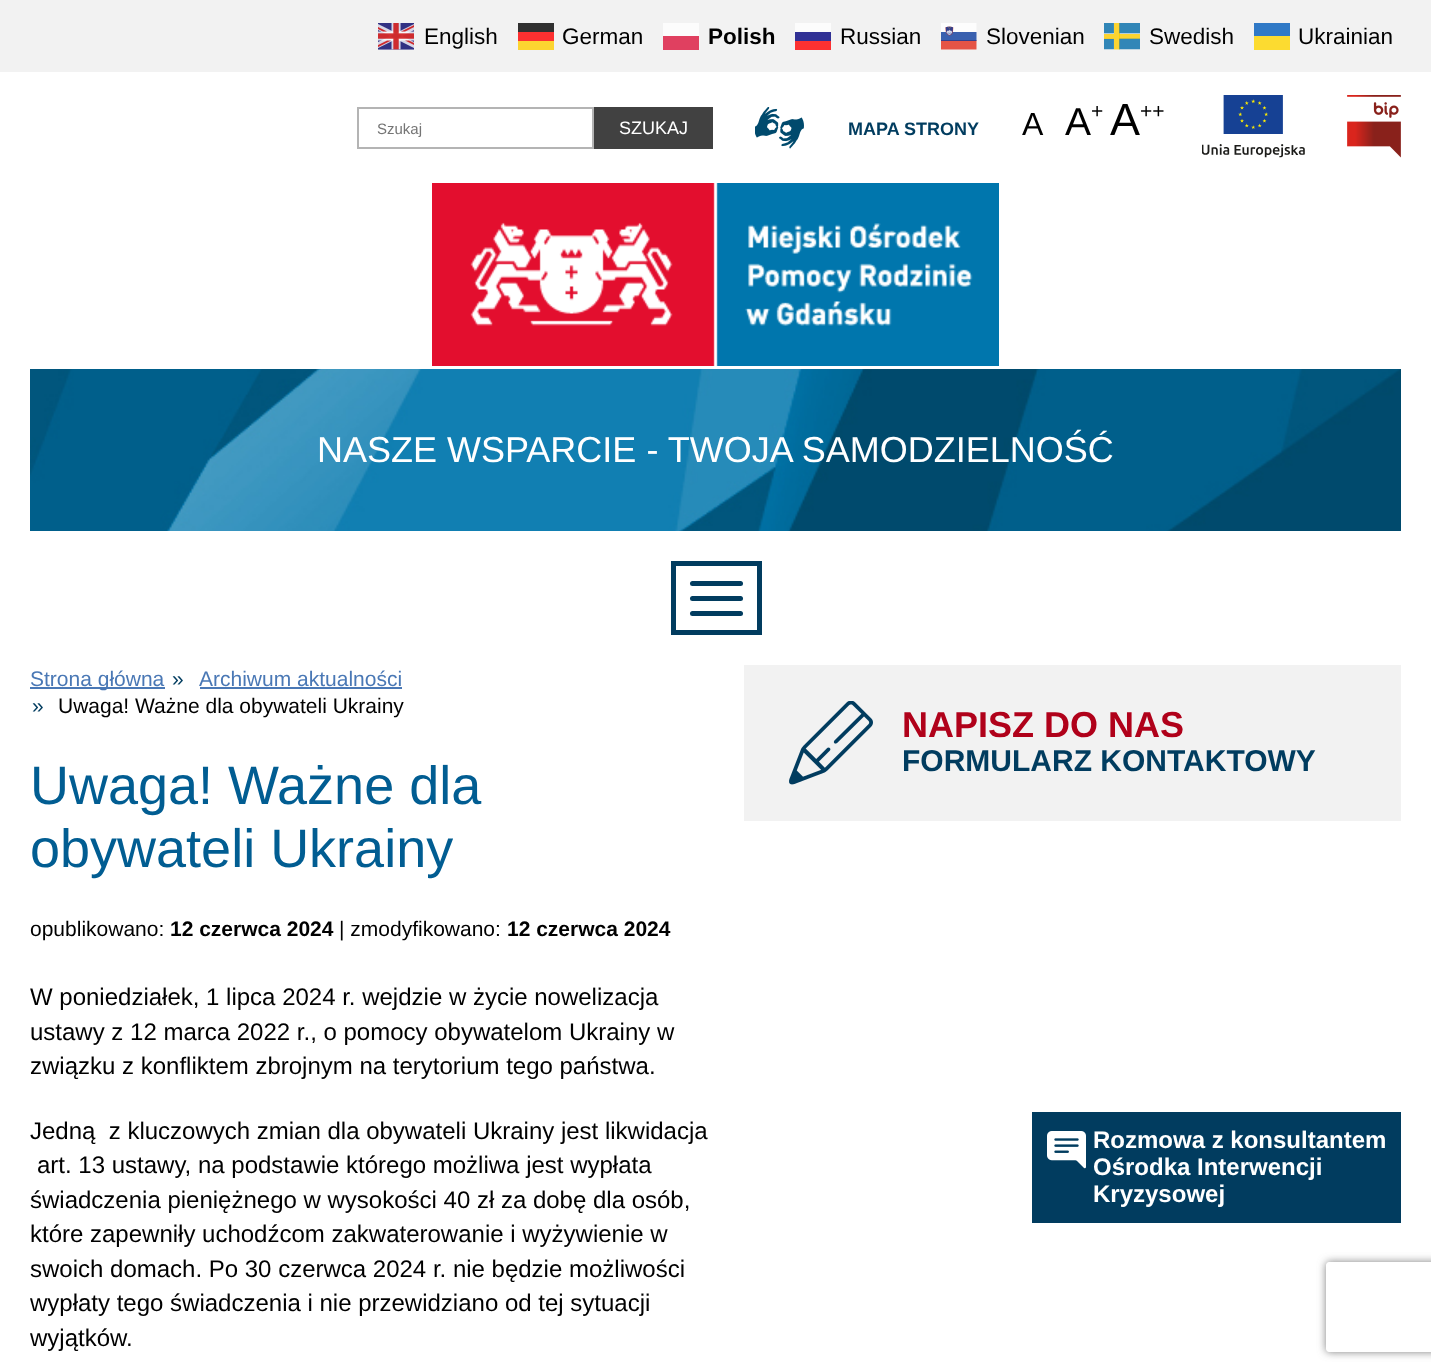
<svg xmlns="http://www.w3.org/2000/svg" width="1431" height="1372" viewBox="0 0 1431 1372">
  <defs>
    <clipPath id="clip1"><path d="M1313 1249H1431V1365H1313ZM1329 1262H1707C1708.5 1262 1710 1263.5 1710 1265V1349C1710 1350.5 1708.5 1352 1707 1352H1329C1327.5 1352 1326 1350.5 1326 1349V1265C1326 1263.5 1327.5 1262 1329 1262Z" clip-rule="evenodd"/></clipPath>
    <filter id="blur1" x="-50%" y="-200%" width="200%" height="500%"><feGaussianBlur stdDeviation="4"/></filter>
  </defs>
  <rect width="100%" height="100%" fill="#ffffff"/>
  <rect x="0" y="0" width="1431" height="72" fill="#f2f2f2"/>
  <image x="378" y="23" width="36" height="27" href="img1.png"/>
  <text x="424" y="44" font-family="Liberation Sans" font-size="22.5" fill="#000000">English</text>
  <rect x="518" y="23" width="36" height="9" fill="#303030"/>
  <text x="562" y="44" font-family="Liberation Sans" font-size="22.5" fill="#000000">German</text>
  <rect x="518" y="32" width="36" height="9" fill="#fc3030"/>
  <rect x="518" y="41" width="36" height="9" fill="#fcd430"/>
  <rect x="663" y="23" width="36" height="13" fill="#fcfcfc"/>
  <text x="708" y="44" font-family="Liberation Sans" font-size="22.5" font-weight="bold" fill="#000000">Polish</text>
  <rect x="663" y="36" width="36" height="14" fill="#e04060"/>
  <rect x="795" y="23" width="36" height="9" fill="#fcfcfc"/>
  <text x="840" y="44" font-family="Liberation Sans" font-size="22.5" fill="#000000">Russian</text>
  <rect x="795" y="32" width="36" height="9" fill="#313195"/>
  <rect x="795" y="41" width="36" height="9" fill="#fc3131"/>
  <image x="941" y="23" width="36" height="27" href="img2.png"/>
  <text x="986" y="44" font-family="Liberation Sans" font-size="22.5" fill="#000000">Slovenian</text>
  <image x="1104" y="23" width="36" height="27" href="img3.png"/>
  <text x="1149" y="44" font-family="Liberation Sans" font-size="22.5" fill="#000000">Swedish</text>
  <rect x="1254" y="23" width="36" height="13" fill="#3079c6"/>
  <text x="1298" y="44" font-family="Liberation Sans" font-size="22.5" fill="#000000">Ukrainian</text>
  <rect x="1254" y="36" width="36" height="14" fill="#fcdb30"/>
  <rect x="358" y="108" width="235" height="40" fill="none" stroke="#b4b4b4" stroke-width="2"/>
  <text x="377" y="134" font-family="Liberation Sans" font-size="15" fill="#757575">Szukaj</text>
  <rect x="594" y="107" width="119" height="42" fill="#414141"/>
  <text x="619" y="134" font-family="Liberation Sans" font-size="18" fill="#ffffff">SZUKAJ</text>
  <image x="755" y="107" width="49" height="42" href="img4.png"/>
  <text x="848" y="135" font-family="Liberation Sans" font-size="18" font-weight="bold" fill="#013c5f">MAPA STRONY</text>
  <text x="1022" y="135" font-family="Liberation Sans" font-size="32" fill="#000000">A</text>
  <text x="1065" y="135" font-family="Liberation Sans" font-size="39" fill="#000000">A</text>
  <text x="1091" y="118" font-family="Liberation Sans" font-size="21" fill="#000000">+</text>
  <text x="1110" y="135" font-family="Liberation Sans" font-size="45" fill="#000000">A</text>
  <text x="1140" y="118" font-family="Liberation Sans" font-size="21" fill="#000000">++</text>
  <image x="1202" y="95" width="103" height="63" href="img5.png"/>
  <image x="1347" y="95" width="54" height="63" href="img6.png"/>
  <image x="432" y="183" width="567" height="183" href="img7.png"/>
  <image x="30" y="369" width="1371" height="162" href="img8.png"/>
  <text x="317" y="462" font-family="Liberation Sans" font-size="36" fill="#ffffff">NASZE WSPARCIE - TWOJA SAMODZIELNOŚĆ</text>
  <rect x="673.5" y="563.5" width="86" height="69" fill="none" stroke="#013c5f" stroke-width="5"/>
  <rect x="690" y="581" width="53" height="5" rx="2.5" fill="#013c5f"/>
  <rect x="690" y="596" width="53" height="5" rx="2.5" fill="#013c5f"/>
  <rect x="690" y="611" width="53" height="5" rx="2.5" fill="#013c5f"/>
  <rect x="30" y="687" width="135" height="2" fill="#4a78b5"/>
  <text x="30" y="686" font-family="Liberation Sans" font-size="21" fill="#4a78b5">Strona główna</text>
  <text x="172" y="686" font-family="Liberation Sans" font-size="21" fill="#013c5f">»</text>
  <text x="199" y="686" font-family="Liberation Sans" font-size="21" fill="#4a78b5">Archiwum aktualności</text>
  <rect x="200" y="687" width="202" height="2" fill="#4a78b5"/>
  <text x="32" y="713" font-family="Liberation Sans" font-size="21" fill="#013c5f">»</text>
  <text x="58" y="713" font-family="Liberation Sans" font-size="21" fill="#000000">Uwaga! Ważne dla obywateli Ukrainy</text>
  <text x="30" y="804" font-family="Liberation Sans" font-size="54" fill="#015d92">Uwaga! Ważne dla</text>
  <text x="30" y="867" font-family="Liberation Sans" font-size="54" fill="#015d92">obywateli Ukrainy</text>
  <text x="30" y="936" font-family="Liberation Sans" font-size="21" fill="#000000">opublikowano:</text>
  <text x="170" y="936" font-family="Liberation Sans" font-size="21" font-weight="bold" fill="#000000">12 czerwca 2024</text>
  <text x="339" y="936" font-family="Liberation Sans" font-size="21" fill="#000000">| zmodyfikowano:</text>
  <text x="507" y="936" font-family="Liberation Sans" font-size="21" font-weight="bold" fill="#000000">12 czerwca 2024</text>
  <text x="30" y="1005" font-family="Liberation Sans" font-size="24" fill="#000000">W poniedziałek, 1 lipca 2024 r. wejdzie w życie nowelizacja</text>
  <text x="30" y="1040" font-family="Liberation Sans" font-size="24" fill="#000000">ustawy z 12 marca 2022 r., o pomocy obywatelom Ukrainy w</text>
  <text x="30" y="1074" font-family="Liberation Sans" font-size="24" fill="#000000">związku z konfliktem zbrojnym na terytorium tego państwa.</text>
  <text x="30" y="1139" font-family="Liberation Sans" font-size="24" fill="#000000" xml:space="preserve">Jedną  z kluczowych zmian dla obywateli Ukrainy jest likwidacja</text>
  <text x="37" y="1173" font-family="Liberation Sans" font-size="24" fill="#000000">art. 13 ustawy, na podstawie którego możliwa jest wypłata</text>
  <text x="30" y="1208" font-family="Liberation Sans" font-size="24" fill="#000000">świadczenia pieniężnego w wysokości 40 zł za dobę dla osób,</text>
  <text x="30" y="1242" font-family="Liberation Sans" font-size="24" fill="#000000">które zapewniły uchodźcom zakwaterowanie i wyżywienie w</text>
  <text x="30" y="1277" font-family="Liberation Sans" font-size="24" fill="#000000">swoich domach. Po 30 czerwca 2024 r. nie będzie możliwości</text>
  <text x="30" y="1311" font-family="Liberation Sans" font-size="24" fill="#000000">wypłaty tego świadczenia i nie przewidziano od tej sytuacji</text>
  <text x="30" y="1346" font-family="Liberation Sans" font-size="24" fill="#000000">wyjątków.</text>
  <rect x="744" y="665" width="657" height="156" fill="#f2f2f2"/>
  <image x="789" y="701" width="84" height="84" href="img9.png"/>
  <text x="902" y="737" font-family="Liberation Sans" font-size="36" font-weight="bold" fill="#b0011a">NAPISZ DO NAS</text>
  <text x="902" y="771" font-family="Liberation Sans" font-size="30" font-weight="bold" fill="#013c5f">FORMULARZ KONTAKTOWY</text>
  <rect x="1032" y="1112" width="369" height="111" fill="#013c5f"/>
  <image x="1047" y="1131" width="39" height="38" href="img10.png"/>
  <text x="1093" y="1148" font-family="Liberation Sans" font-size="24" font-weight="bold" fill="#ffffff">Rozmowa z konsultantem</text>
  <text x="1093" y="1175" font-family="Liberation Sans" font-size="24" font-weight="bold" fill="#ffffff">Ośrodka Interwencji</text>
  <text x="1093" y="1202" font-family="Liberation Sans" font-size="24" font-weight="bold" fill="#ffffff">Kryzysowej</text>
  <g clip-path="url(#clip1)">
    <rect x="1326" y="1262" width="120" height="90" rx="3" fill="#808080" filter="url(#blur1)"/>
  </g>
</svg>
